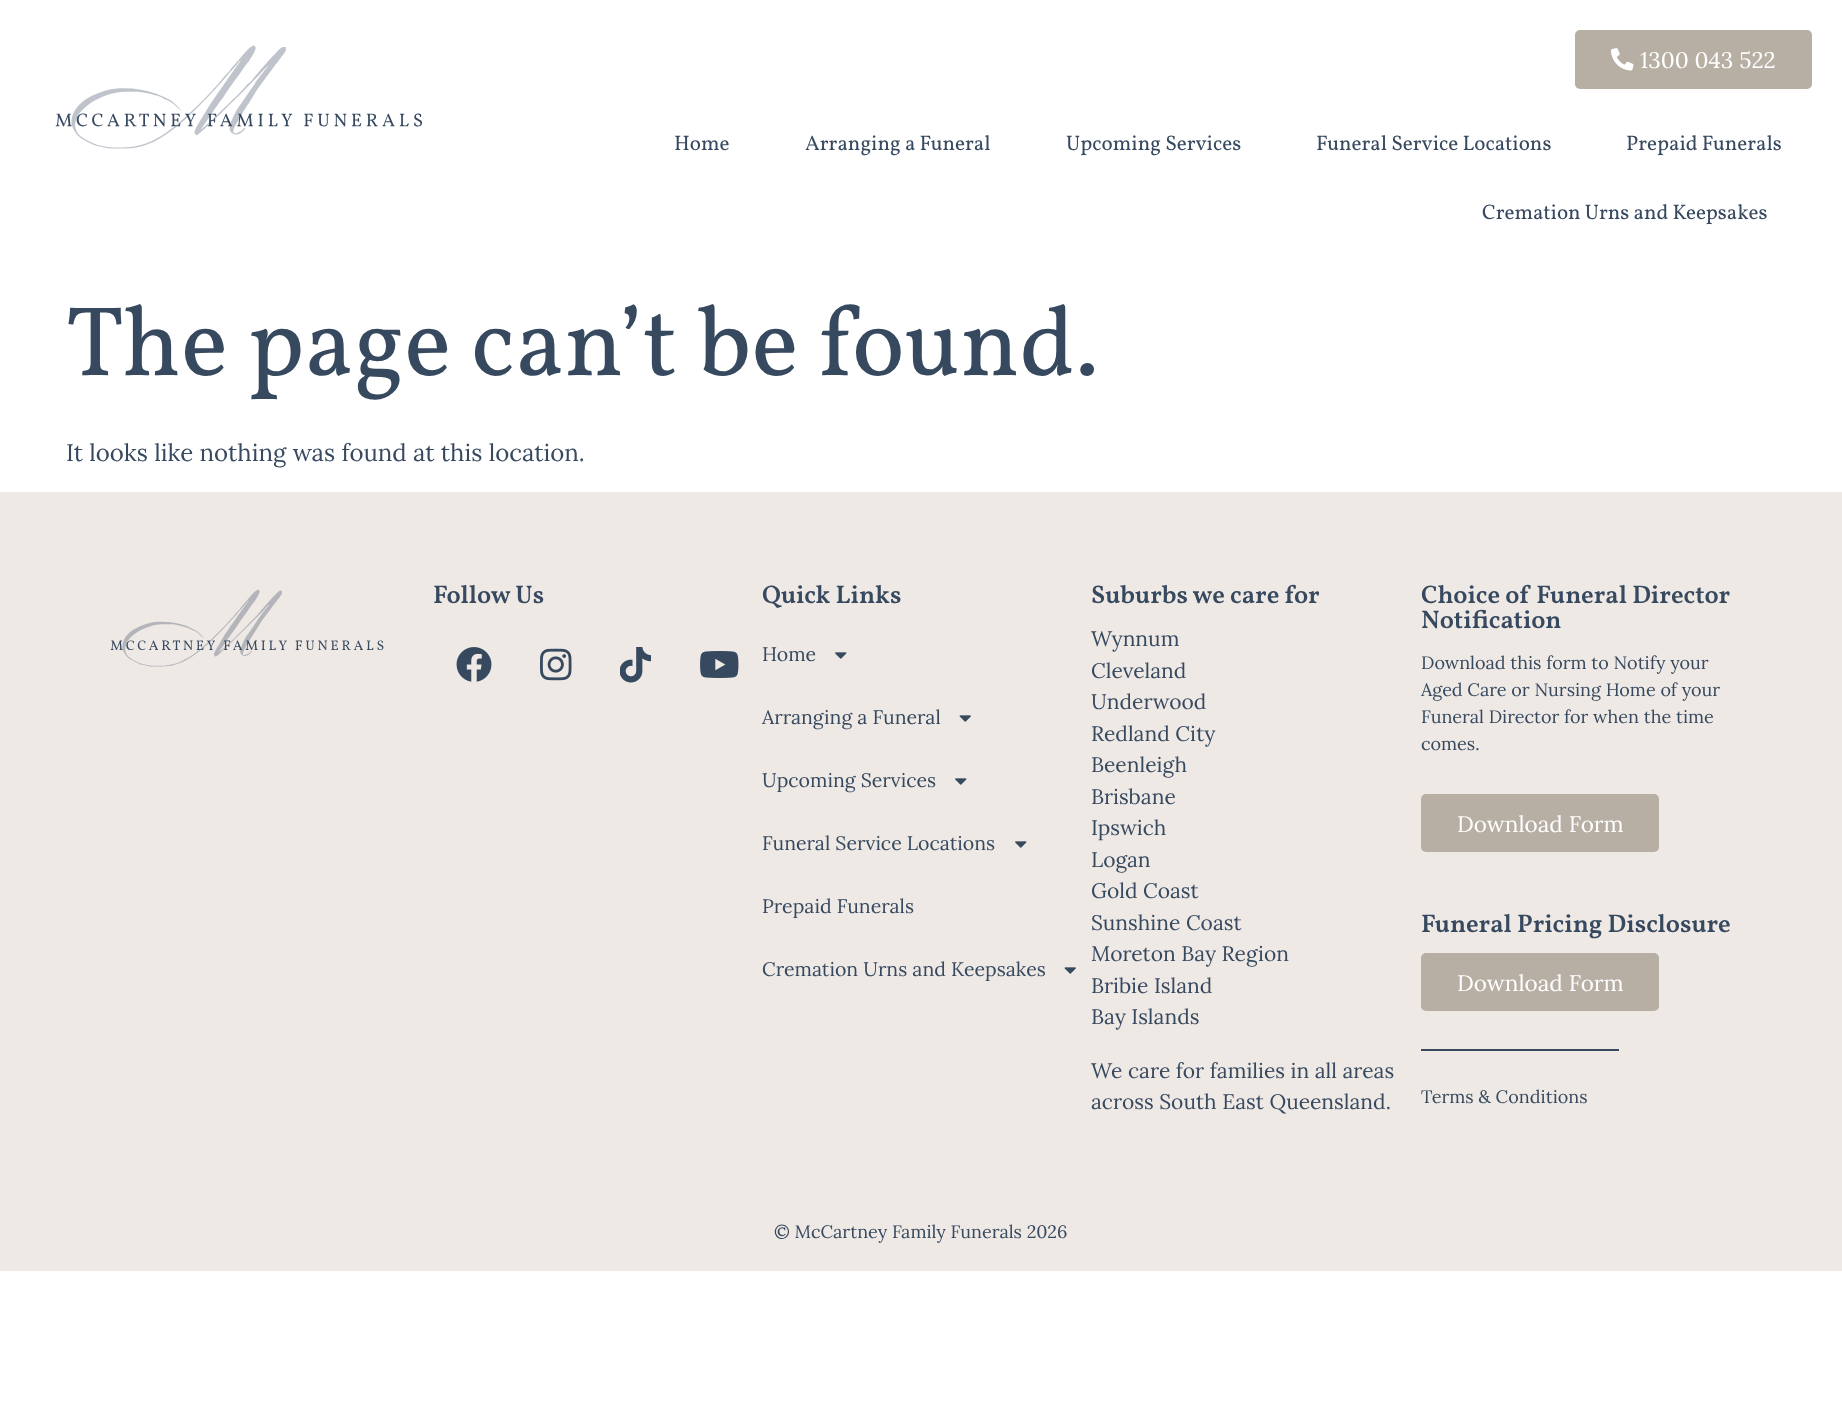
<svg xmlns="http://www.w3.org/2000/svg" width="1842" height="1412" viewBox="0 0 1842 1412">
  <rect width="100%" height="100%" fill="#ffffff"/>
  <image x="55" y="45" width="367" height="104" href="img1.png"/>
  <rect x="1575" y="30" width="237" height="59" rx="5" fill="#b7aea4"/>
  <image x="1611" y="48" width="23" height="23" href="img2.png"/>
  <text x="1640" y="68" font-family="Lora" font-size="22.5" fill="#ffffff">1300 043 522</text>
  <text x="674" y="150" font-family="Vollkorn" font-size="21" fill="#37495f">Home</text>
  <text x="805" y="150" font-family="Vollkorn" font-size="21" fill="#37495f">Arranging a Funeral</text>
  <text x="1066" y="150" font-family="Vollkorn" font-size="21" fill="#37495f">Upcoming Services</text>
  <text x="1316" y="150" font-family="Vollkorn" font-size="21" fill="#37495f">Funeral Service Locations</text>
  <text x="1626" y="150" font-family="Vollkorn" font-size="21" fill="#37495f">Prepaid Funerals</text>
  <text x="1482" y="219" font-family="Vollkorn" font-size="21" fill="#37495f">Cremation Urns and Keepsakes</text>
  <text x="66" y="375" font-family="Vollkorn" font-size="99" fill="#37495f">The page can’t be found.</text>
  <text x="66" y="461" font-family="Lora" font-size="24" fill="#37495f">It looks like nothing was found at this location.</text>
  <rect x="0" y="492" width="1842" height="779" fill="#eee9e5"/>
  <image x="110" y="589" width="274" height="78" href="img3.png"/>
  <text x="433" y="603" font-family="Vollkorn" font-size="25.5" font-weight="600" fill="#37495f">Follow Us</text>
  <image x="456" y="647" width="36" height="35" href="img4.png"/>
  <image x="540" y="648" width="32" height="33" href="img5.png"/>
  <image x="620" y="647" width="31" height="36" href="img6.png"/>
  <image x="700" y="651" width="39" height="27" href="img7.png"/>
  <text x="762" y="603" font-family="Vollkorn" font-size="25.5" font-weight="600" fill="#37495f">Quick Links</text>
  <text x="762" y="661" font-family="Lora" font-size="19.5" fill="#37495f">Home</text>
  <image x="835" y="652" width="12" height="7" href="img8.png"/>
  <text x="762" y="724" font-family="Lora" font-size="19.5" fill="#37495f">Arranging a Funeral</text>
  <image x="959" y="715" width="12" height="7" href="img9.png"/>
  <text x="762" y="787" font-family="Lora" font-size="19.5" fill="#37495f">Upcoming Services</text>
  <image x="955" y="778" width="12" height="7" href="img8.png"/>
  <text x="762" y="850" font-family="Lora" font-size="19.5" fill="#37495f">Funeral Service Locations</text>
  <image x="1015" y="841" width="12" height="7" href="img8.png"/>
  <text x="762" y="913" font-family="Lora" font-size="19.5" fill="#37495f">Prepaid Funerals</text>
  <text x="762" y="976" font-family="Lora" font-size="19.5" fill="#37495f">Cremation Urns and Keepsakes</text>
  <image x="1064" y="967" width="12" height="7" href="img9.png"/>
  <text x="1091" y="603" font-family="Vollkorn" font-size="25.5" font-weight="600" fill="#37495f">Suburbs we care for</text>
  <text x="1091" y="646" font-family="Lora" font-size="21" fill="#37495f">Wynnum</text>
  <text x="1091" y="678" font-family="Lora" font-size="21" fill="#37495f">Cleveland</text>
  <text x="1091" y="709" font-family="Lora" font-size="21" fill="#37495f">Underwood</text>
  <text x="1091" y="741" font-family="Lora" font-size="21" fill="#37495f">Redland City</text>
  <text x="1091" y="772" font-family="Lora" font-size="21" fill="#37495f">Beenleigh</text>
  <text x="1091" y="804" font-family="Lora" font-size="21" fill="#37495f">Brisbane</text>
  <text x="1091" y="835" font-family="Lora" font-size="21" fill="#37495f">Ipswich</text>
  <text x="1091" y="867" font-family="Lora" font-size="21" fill="#37495f">Logan</text>
  <text x="1091" y="898" font-family="Lora" font-size="21" fill="#37495f">Gold Coast</text>
  <text x="1091" y="930" font-family="Lora" font-size="21" fill="#37495f">Sunshine Coast</text>
  <text x="1091" y="961" font-family="Lora" font-size="21" fill="#37495f">Moreton Bay Region</text>
  <text x="1091" y="993" font-family="Lora" font-size="21" fill="#37495f">Bribie Island</text>
  <text x="1091" y="1024" font-family="Lora" font-size="21" fill="#37495f">Bay Islands</text>
  <text x="1091" y="1078" font-family="Lora" font-size="21" fill="#37495f">We care for families in all areas</text>
  <text x="1091" y="1109" font-family="Lora" font-size="21" fill="#37495f">across South East Queensland.</text>
  <text x="1421" y="603" font-family="Vollkorn" font-size="25.5" font-weight="600" fill="#37495f">Choice of Funeral Director</text>
  <text x="1421" y="628" font-family="Vollkorn" font-size="25.5" font-weight="600" fill="#37495f">Notification</text>
  <text x="1421" y="669" font-family="Lora" font-size="18" fill="#37495f">Download this form to Notify your</text>
  <text x="1421" y="696" font-family="Lora" font-size="18" fill="#37495f">Aged Care or Nursing Home of your</text>
  <text x="1421" y="723" font-family="Lora" font-size="18" fill="#37495f">Funeral Director for when the time</text>
  <text x="1421" y="750" font-family="Lora" font-size="18" fill="#37495f">comes.</text>
  <rect x="1421" y="794" width="238" height="58" rx="5" fill="#b7aea4"/>
  <text x="1457" y="832" font-family="Lora" font-size="22.5" fill="#ffffff">Download Form</text>
  <text x="1421" y="932" font-family="Vollkorn" font-size="25.5" font-weight="600" fill="#37495f">Funeral Pricing Disclosure</text>
  <rect x="1421" y="953" width="238" height="58" rx="5" fill="#b7aea4"/>
  <text x="1457" y="991" font-family="Lora" font-size="22.5" fill="#ffffff">Download Form</text>
  <rect x="1421" y="1049" width="198" height="2" fill="#37495f"/>
  <text x="1421" y="1103" font-family="Lora" font-size="18" fill="#37495f">Terms &amp; Conditions</text>
  <text x="774" y="1238" font-family="Lora" font-size="18" fill="#37495f">© McCartney Family Funerals 2026</text>
</svg>
